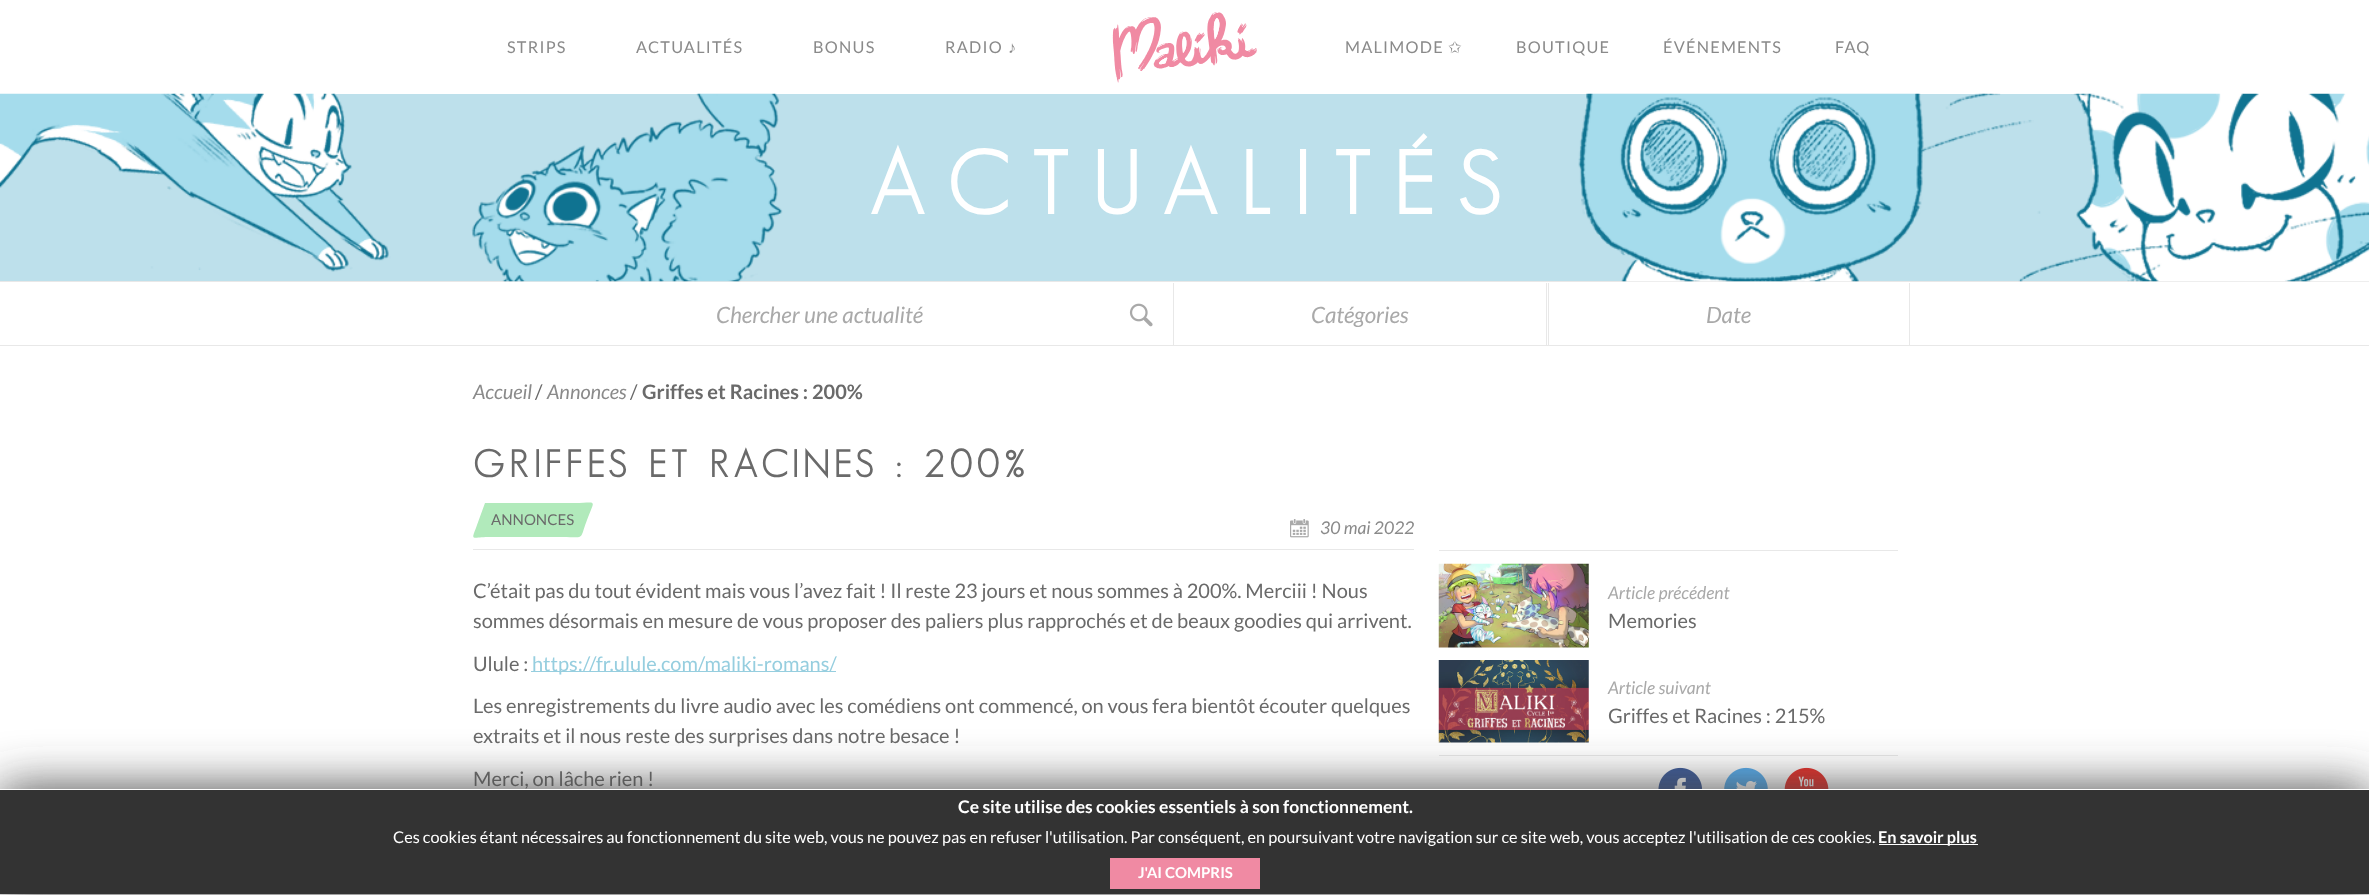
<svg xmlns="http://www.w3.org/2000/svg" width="2369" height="895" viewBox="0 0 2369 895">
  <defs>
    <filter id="blur1" x="-50%" y="-200%" width="200%" height="500%"><feGaussianBlur stdDeviation="25"/></filter>
  </defs>
  <rect width="100%" height="100%" fill="#ffffff"/>
  <text x="507" y="53" font-family="Lato" font-size="16.25" letter-spacing="1.25" fill="#8a8a8a">STRIPS</text>
  <text x="636" y="53" font-family="Lato" font-size="16.25" letter-spacing="1.25" fill="#8a8a8a">ACTUALITÉS</text>
  <text x="813" y="53" font-family="Lato" font-size="16.25" letter-spacing="1.25" fill="#8a8a8a">BONUS</text>
  <text x="945" y="53" font-family="Lato" font-size="16.25" letter-spacing="1.25" fill="#8a8a8a">RADIO</text>
  <text x="1008" y="53" font-family="Liberation Sans" font-size="16.25" letter-spacing="1.25" fill="#8a8a8a">♪</text>
  <image x="1112" y="12" width="145" height="71" href="img1.png"/>
  <text x="1345" y="53" font-family="Lato" font-size="16.25" letter-spacing="1.25" fill="#8a8a8a">MALIMODE</text>
  <text x="1448" y="53" font-family="DejaVu Sans" font-size="16.25" letter-spacing="1.25" fill="#8a8a8a">✩</text>
  <text x="1516" y="53" font-family="Lato" font-size="16.25" letter-spacing="1.25" fill="#8a8a8a">BOUTIQUE</text>
  <text x="1663" y="53" font-family="Lato" font-size="16.25" letter-spacing="1.25" fill="#8a8a8a">ÉVÉNEMENTS</text>
  <text x="1835" y="53" font-family="Lato" font-size="16.25" letter-spacing="1.25" fill="#8a8a8a">FAQ</text>
  <rect x="0" y="94" width="2151" height="187" fill="#bde0eb"/>
  <rect x="0" y="281" width="2369" height="1" fill="#e8e8e8"/>
  <image x="0" y="93" width="2369" height="189" href="img2.png"/>
  <text x="869" y="214" font-family="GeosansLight" font-size="87.5" font-weight="bold" fill="#ffffff">A C T U A L I T É S</text>
  <rect x="0" y="345" width="2369" height="1" fill="#e8e8e8"/>
  <text x="716" y="323" font-family="Lato" font-size="22.5" font-style="italic" fill="#a9a9a9">Chercher une actualité</text>
  <image x="1129" y="303" width="24" height="24" href="img3.png"/>
  <rect x="1546" y="283" width="1" height="62" fill="#e8e8e8"/>
  <rect x="1173" y="283" width="1" height="62" fill="#e8e8e8"/>
  <text x="1311" y="323" font-family="Lato" font-size="22.5" font-style="italic" fill="#a9a9a9">Catégories</text>
  <rect x="1909" y="283" width="1" height="62" fill="#e8e8e8"/>
  <rect x="1548" y="283" width="1" height="62" fill="#e8e8e8"/>
  <text x="1706" y="323" font-family="Lato" font-size="22.5" font-style="italic" fill="#a9a9a9">Date</text>
  <text x="473" y="399" font-family="Lato" font-size="20" font-style="italic" fill="#8a8a8a">Accueil</text>
  <text x="535" y="399" font-family="Lato" font-size="20" fill="#6a6a6a">/</text>
  <text x="547" y="399" font-family="Lato" font-size="20" font-style="italic" fill="#8a8a8a">Annonces</text>
  <text x="630" y="399" font-family="Lato" font-size="20" fill="#6a6a6a">/</text>
  <text x="642" y="399" font-family="Lato" font-size="20" font-weight="bold" fill="#6a6a6a">Griffes et Racines : 200%</text>
  <rect x="473" y="549" width="941" height="1" fill="#e8e8e8"/>
  <text x="473" y="477" font-family="GeosansLight" font-size="37.5" font-weight="bold" letter-spacing="6.25" fill="#6a6a6a">GRIFFES ET RACINES : 200%</text>
  <path d="M486 503H574C598 503 595 498 587 520C579 541 586 537 562 537H491C470 537 471 542 477 525L485 503Z" fill="#b1eabb"/>
  <text x="491" y="525" font-family="Lato" font-size="15" fill="#6a6a6a">ANNONCES</text>
  <image x="1290" y="519" width="19" height="19" href="img4.png"/>
  <text x="1320" y="534" font-family="Lato" font-size="17.5" font-style="italic" fill="#8a8a8a">30 mai 2022</text>
  <text x="473" y="598" font-family="Lato" font-size="20" fill="#6a6a6a">C’était pas du tout évident mais vous l’avez fait ! Il reste 23 jours et nous sommes à 200%. Merciii ! Nous</text>
  <text x="473" y="628" font-family="Lato" font-size="20" fill="#6a6a6a">sommes désormais en mesure de vous proposer des paliers plus rapprochés et de beaux goodies qui arrivent.</text>
  <text x="473" y="671" font-family="Lato" font-size="20" fill="#6a6a6a">Ulule :</text>
  <rect x="531" y="671" width="305" height="1" fill="#96cedf"/>
  <text x="532" y="671" font-family="Lato" font-size="20" fill="#96cedf">https://fr.ulule.com/maliki-romans/</text>
  <text x="473" y="713" font-family="Lato" font-size="20" fill="#6a6a6a">Les enregistrements du livre audio avec les comédiens ont commencé, on vous fera bientôt écouter quelques</text>
  <text x="473" y="743" font-family="Lato" font-size="20" fill="#6a6a6a">extraits et il nous reste des surprises dans notre besace !</text>
  <text x="473" y="786" font-family="Lato" font-size="20" fill="#6a6a6a">Merci, on lâche rien !</text>
  <rect x="1439" y="550" width="459" height="1" fill="#e8e8e8"/>
  <rect x="1439" y="755" width="459" height="1" fill="#e8e8e8"/>
  <image x="1438" y="563" width="151" height="85" href="img5.png"/>
  <text x="1608" y="599" font-family="Lato" font-size="17.5" font-style="italic" fill="#a9a9a9">Article précédent</text>
  <text x="1608" y="628" font-family="Lato" font-size="20" fill="#6a6a6a">Memories</text>
  <image x="1438" y="660" width="151" height="83" href="img6.png"/>
  <text x="1608" y="694" font-family="Lato" font-size="17.5" font-style="italic" fill="#a9a9a9">Article suivant</text>
  <text x="1608" y="723" font-family="Lato" font-size="20" fill="#6a6a6a">Griffes et Racines : 215%</text>
  <image x="1658" y="767" width="45" height="22" href="img7.png"/>
  <image x="1724" y="767" width="44" height="22" href="img8.png"/>
  <image x="1784" y="767" width="45" height="22" href="img9.png"/>
  <rect x="0" y="789" width="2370" height="106" fill="#444444" filter="url(#blur1)"/>
  <rect x="0" y="790" width="2369" height="104" fill="#333333"/>
  <rect x="0" y="789" width="2369" height="1" fill="#ffffff"/>
  <text x="958" y="813" font-family="Lato" font-size="17.5" font-weight="bold" fill="#ffffff">Ce site utilise des cookies essentiels à son fonctionnement.</text>
  <text x="393" y="843" font-family="Lato" font-size="16.25" fill="#ffffff">Ces cookies étant nécessaires au fonctionnement du site web, vous ne pouvez pas en refuser l'utilisation. Par conséquent, en poursuivant votre navigation sur ce site web, vous acceptez l'utilisation de ces cookies.</text>
  <rect x="1879" y="844" width="99" height="1" fill="#ffffff"/>
  <text x="1878" y="843" font-family="Lato" font-size="16.25" font-weight="bold" fill="#ffffff">En savoir plus</text>
  <rect x="1110" y="858" width="150" height="31" fill="#f08aa3"/>
  <text x="1138" y="878" font-family="Lato" font-size="15" font-weight="bold" fill="#ffffff">J'AI COMPRIS</text>
</svg>
